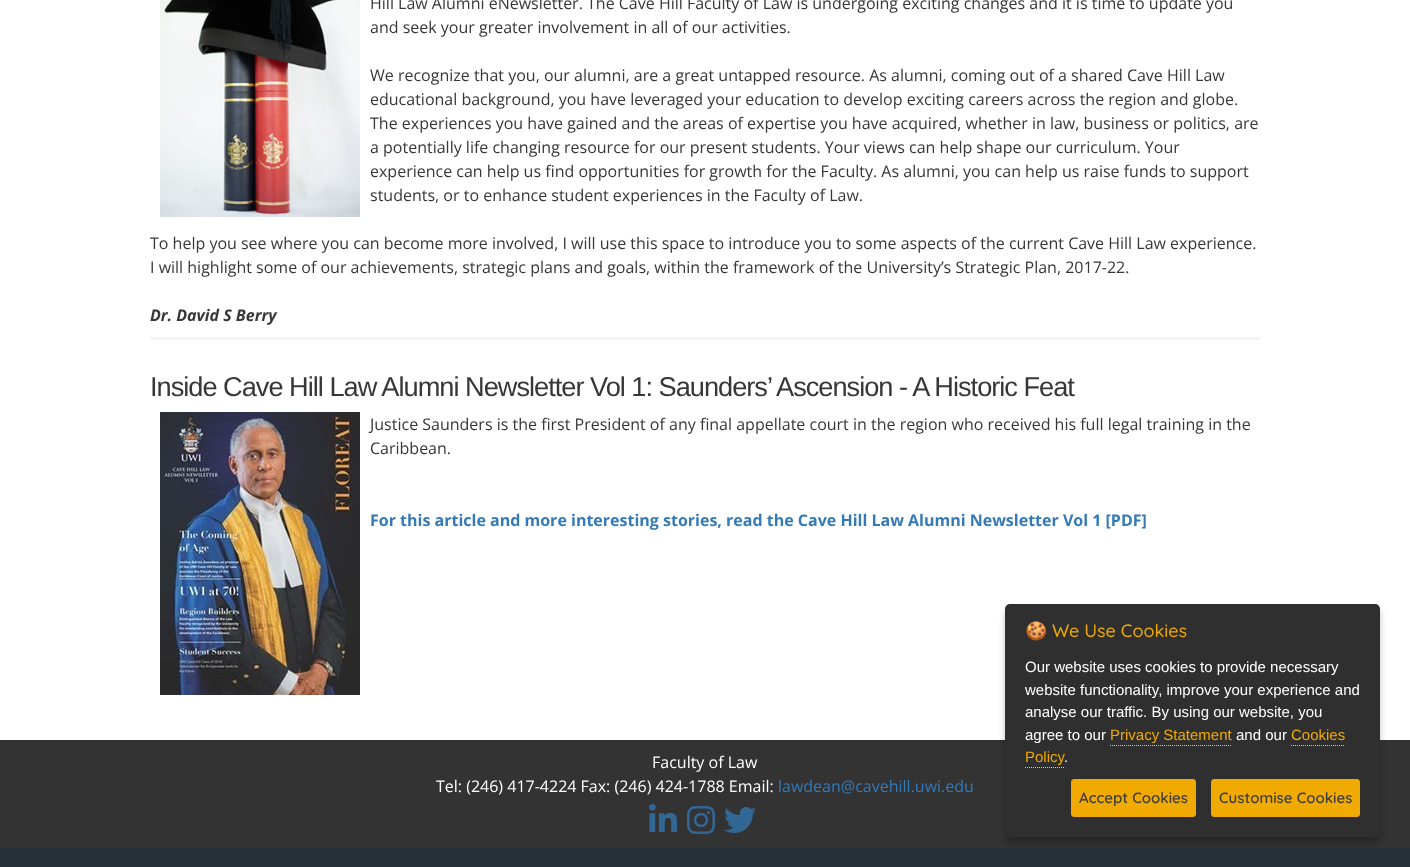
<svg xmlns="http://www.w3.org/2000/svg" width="1410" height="867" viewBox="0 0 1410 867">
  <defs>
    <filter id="blur1" x="-50%" y="-200%" width="200%" height="500%"><feGaussianBlur stdDeviation="3"/></filter>
  </defs>
  <rect width="100%" height="100%" fill="#ffffff"/>
  <image x="160" y="0" width="200" height="217" href="img1.png"/>
  <text x="370" y="9" font-family="Open Sans" font-size="16" fill="#373737">Hill Law Alumni eNewsletter. The Cave Hill Faculty of Law is undergoing exciting changes and it is time to update you</text>
  <text x="370" y="33" font-family="Open Sans" font-size="16" fill="#373737">and seek your greater involvement in all of our activities.</text>
  <text x="370" y="81" font-family="Open Sans" font-size="16" fill="#373737">We recognize that you, our alumni, are a great untapped resource. As alumni, coming out of a shared Cave Hill Law</text>
  <text x="370" y="105" font-family="Open Sans" font-size="16" fill="#373737">educational background, you have leveraged your education to develop exciting careers across the region and globe.</text>
  <text x="370" y="129" font-family="Open Sans" font-size="16" fill="#373737">The experiences you have gained and the areas of expertise you have acquired, whether in law, business or politics, are</text>
  <text x="370" y="153" font-family="Open Sans" font-size="16" fill="#373737">a potentially life changing resource for our present students. Your views can help shape our curriculum. Your</text>
  <text x="370" y="177" font-family="Open Sans" font-size="16" fill="#373737">experience can help us find opportunities for growth for the Faculty. As alumni, you can help us raise funds to support</text>
  <text x="370" y="201" font-family="Open Sans" font-size="16" fill="#373737">students, or to enhance student experiences in the Faculty of Law.</text>
  <text x="150" y="249" font-family="Open Sans" font-size="16" fill="#373737">To help you see where you can become more involved, I will use this space to introduce you to some aspects of the current Cave Hill Law experience.</text>
  <text x="150" y="273" font-family="Open Sans" font-size="16" fill="#373737">I will highlight some of our achievements, strategic plans and goals, within the framework of the University’s Strategic Plan, 2017-22.</text>
  <text x="150" y="321" font-family="Open Sans" font-size="16" font-weight="bold" font-style="italic" fill="#373737">Dr. David S Berry</text>
  <rect x="150" y="337" width="1110" height="3" fill="#f4f4f4"/>
  <text x="150" y="396" font-family="Liberation Sans" font-size="27.2" letter-spacing="-1" fill="#373737">Inside Cave Hill Law Alumni Newsletter Vol 1: Saunders’ Ascension - A Historic Feat</text>
  <image x="160" y="412" width="200" height="283" href="img2.png"/>
  <text x="370" y="430" font-family="Open Sans" font-size="16" fill="#373737">Justice Saunders is the first President of any final appellate court in the region who received his full legal training in the</text>
  <text x="370" y="454" font-family="Open Sans" font-size="16" fill="#373737">Caribbean.</text>
  <text x="370" y="526" font-family="Open Sans" font-size="16" font-weight="bold" fill="#337ab7">For this article and more interesting stories, read the Cave Hill Law Alumni Newsletter Vol 1 [PDF]</text>
  <rect x="0" y="740" width="1410" height="108" fill="#333333"/>
  <text x="652" y="768" font-family="Open Sans" font-size="16" fill="#ffffff">Faculty of Law</text>
  <text x="436" y="792" font-family="Open Sans" font-size="16" fill="#ffffff">Tel: (246) 417-4224 Fax: (246) 424-1788 Email:</text>
  <text x="778" y="792" font-family="Open Sans" font-size="16" fill="#337ab7">lawdean@cavehill.uwi.edu</text>
  <image x="649" y="804" width="28" height="28" href="img3.png"/>
  <image x="687" y="806" width="28" height="28" href="img4.png"/>
  <image x="724" y="807" width="32" height="26" href="img5.png"/>
  <rect x="0" y="848" width="1410" height="19" fill="#253037"/>
  <rect x="1005" y="610" width="375" height="233" rx="5" fill="#000000" fill-opacity="0.25" filter="url(#blur1)"/>
  <rect x="1005" y="604" width="375" height="233" rx="5" fill="#2f2f2f"/>
  <text x="1025" y="637" font-family="Noto Color Emoji" font-size="18" fill="#f1aa00">🍪</text>
  <text x="1052" y="637" font-family="Quicksand" font-size="18" font-weight="500" fill="#f1aa00">We Use Cookies</text>
  <text x="1025" y="672" font-family="Liberation Sans" font-size="15" fill="#ffffff">Our website uses cookies to provide necessary</text>
  <text x="1025" y="695" font-family="Liberation Sans" font-size="15" fill="#ffffff">website functionality, improve your experience and</text>
  <text x="1025" y="717" font-family="Liberation Sans" font-size="15" fill="#ffffff">analyse our traffic. By using our website, you</text>
  <text x="1025" y="740" font-family="Liberation Sans" font-size="15" fill="#ffffff">agree to our</text>
  <text x="1110" y="740" font-family="Liberation Sans" font-size="15" fill="#f1aa00">Privacy Statement</text>
  <path d="M1110 745.5H1232" fill="none" stroke="#cbcbcb" stroke-dasharray="1 1"/>
  <text x="1236" y="740" font-family="Liberation Sans" font-size="15" fill="#ffffff">and our</text>
  <text x="1291" y="740" font-family="Liberation Sans" font-size="15" fill="#f1aa00">Cookies</text>
  <path d="M1291 745.5H1345" fill="none" stroke="#cbcbcb" stroke-dasharray="1 1"/>
  <text x="1025" y="762" font-family="Liberation Sans" font-size="15" fill="#f1aa00">Policy</text>
  <path d="M1025 767.5H1064" fill="none" stroke="#cbcbcb" stroke-dasharray="1 1"/>
  <text x="1064" y="762" font-family="Liberation Sans" font-size="15" fill="#ffffff">.</text>
  <rect x="1071.5" y="779.5" width="124" height="37" rx="2.5" fill="#f1aa00" stroke="#f1aa00"/>
  <text x="1079" y="803" font-family="Quicksand" font-size="15" font-weight="600" fill="#3d3d3d">Accept Cookies</text>
  <rect x="1211.5" y="779.5" width="148" height="37" rx="2.5" fill="#f1aa00" stroke="#f1aa00"/>
  <text x="1219" y="803" font-family="Quicksand" font-size="15" font-weight="600" fill="#3d3d3d">Customise Cookies</text>
</svg>
